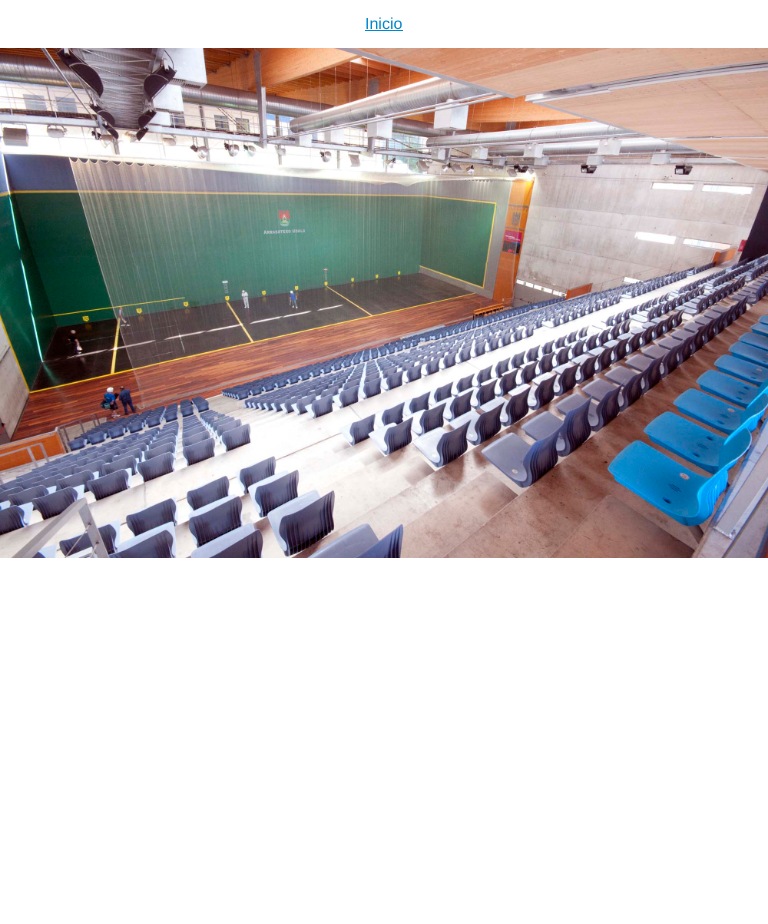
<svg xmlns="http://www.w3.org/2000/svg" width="768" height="924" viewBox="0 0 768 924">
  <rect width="100%" height="100%" fill="#ffffff"/>
  <text x="365" y="29" font-family="Liberation Sans" font-size="16" fill="#0088cc">Inicio</text>
  <rect x="365" y="30" width="38" height="1" fill="#0088cc"/>
  <image x="0" y="48" width="768" height="510" href="img1.png"/>
</svg>
